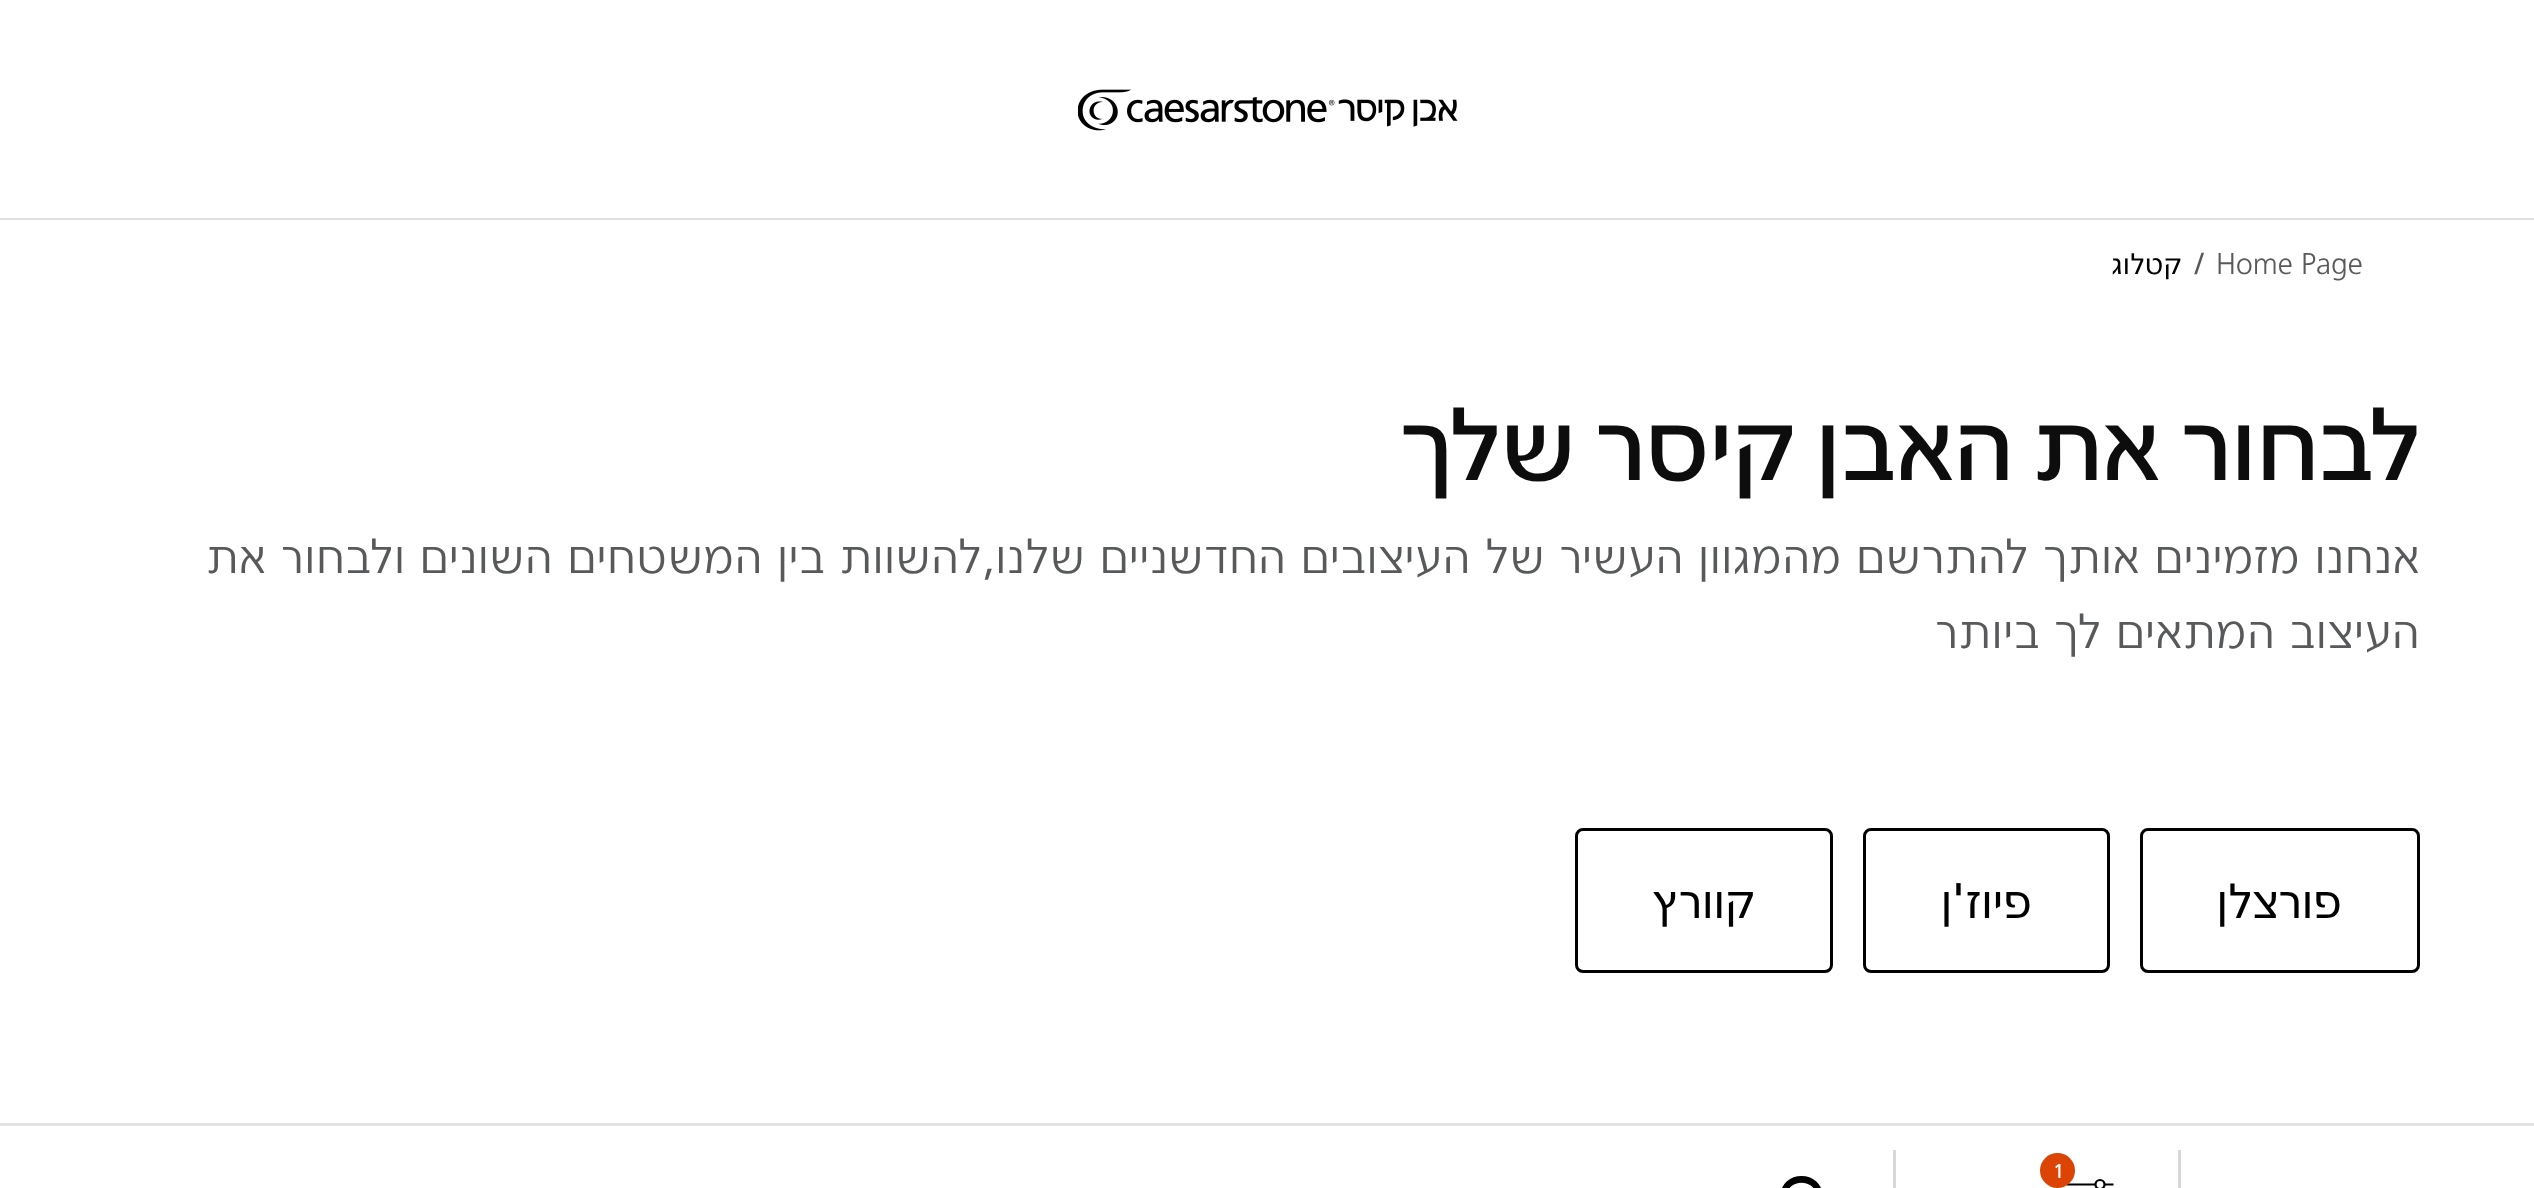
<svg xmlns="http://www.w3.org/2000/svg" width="2534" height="1188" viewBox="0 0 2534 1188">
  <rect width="100%" height="100%" fill="#ffffff"/>
  <rect x="0" y="218" width="2534" height="2" fill="#dedede"/>
  <image x="1078" y="89" width="380" height="42" href="img1.png"/>
  <text x="2216" y="274" font-family="Frutiger" font-size="30" font-weight="300" fill="#58595b">Home Page</text>
  <text x="2195" y="274" font-family="Frutiger" font-size="30" fill="#58595b">/</text>
  <text x="2182" y="274" font-family="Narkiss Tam" font-size="30" direction="rtl" fill="#000000">קטלוג</text>
  <text x="2420" y="480" word-spacing="-2" font-family="Narkiss Tam" font-size="105" font-weight="500" letter-spacing="-1.25" direction="rtl" fill="#0d0d0d">לבחור את האבן קיסר שלך</text>
  <text x="2420" y="573" word-spacing="3" font-family="Narkiss Tam" font-size="50" font-weight="300" direction="rtl" fill="#58595b">אנחנו מזמינים אותך להתרשם מהמגוון העשיר של העיצובים החדשניים שלנו</text>
  <text x="996" y="573" font-family="Frutiger" font-size="50" font-weight="300" direction="rtl" fill="#58595b">,</text>
  <text x="982" y="573" word-spacing="3" font-family="Narkiss Tam" font-size="50" font-weight="300" direction="rtl" fill="#58595b">להשוות בין המשטחים השונים ולבחור את</text>
  <text x="2420" y="648" word-spacing="3" font-family="Narkiss Tam" font-size="50" font-weight="300" direction="rtl" fill="#58595b">העיצוב המתאים לך ביותר</text>
  <rect x="2141.5" y="829.5" width="277" height="142" rx="6.5" fill="none" stroke="#000000" stroke-width="3"/>
  <text x="2342" y="918" font-family="Narkiss Tam" font-size="50" letter-spacing="-0.5" direction="rtl" fill="#000000">פורצלן</text>
  <rect x="1864.5" y="829.5" width="244" height="142" rx="6.5" fill="none" stroke="#000000" stroke-width="3"/>
  <text x="1965" y="918" font-family="Frutiger" font-size="50" letter-spacing="-0.5" direction="rtl" fill="#000000">'</text>
  <text x="2032" y="918" font-family="Narkiss Tam" font-size="50" letter-spacing="-0.5" direction="rtl" fill="#000000">פיוז</text>
  <text x="1952" y="918" font-family="Narkiss Tam" font-size="50" letter-spacing="-0.5" direction="rtl" fill="#000000">ן</text>
  <rect x="1576.5" y="829.5" width="255" height="142" rx="6.5" fill="none" stroke="#000000" stroke-width="3"/>
  <text x="1755" y="918" font-family="Narkiss Tam" font-size="50" letter-spacing="-0.5" direction="rtl" fill="#000000">קוורץ</text>
  <rect x="0" y="1123" width="2534" height="3" fill="#e3e3e3"/>
  <rect x="2178" y="1150" width="3" height="38" fill="#d8d8d8"/>
  <rect x="1893" y="1150" width="3" height="38" fill="#d8d8d8"/>
  <path d="M2066.5 1184.5H2113.5" fill="none" stroke="#000000" stroke-width="2.2"/>
  <circle cx="2057.5" cy="1170.5" r="17.5" fill="#dc4405"/>
  <text x="2053" y="1178" font-family="Frutiger" font-size="20" fill="#ffffff">1</text>
  <circle cx="2100" cy="1184.5" r="4.5" fill="#ffffff" stroke="#000000" stroke-width="2.2"/>
  <path d="M1783.5 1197C1783.5 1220.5 1819.5 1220.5 1819.5 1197C1819.5 1173.5 1783.5 1173.5 1783.5 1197ZM1814 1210L1824 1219.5" fill="none" stroke="#000000" stroke-width="6.7" stroke-linecap="round" stroke-linejoin="round"/>
</svg>
